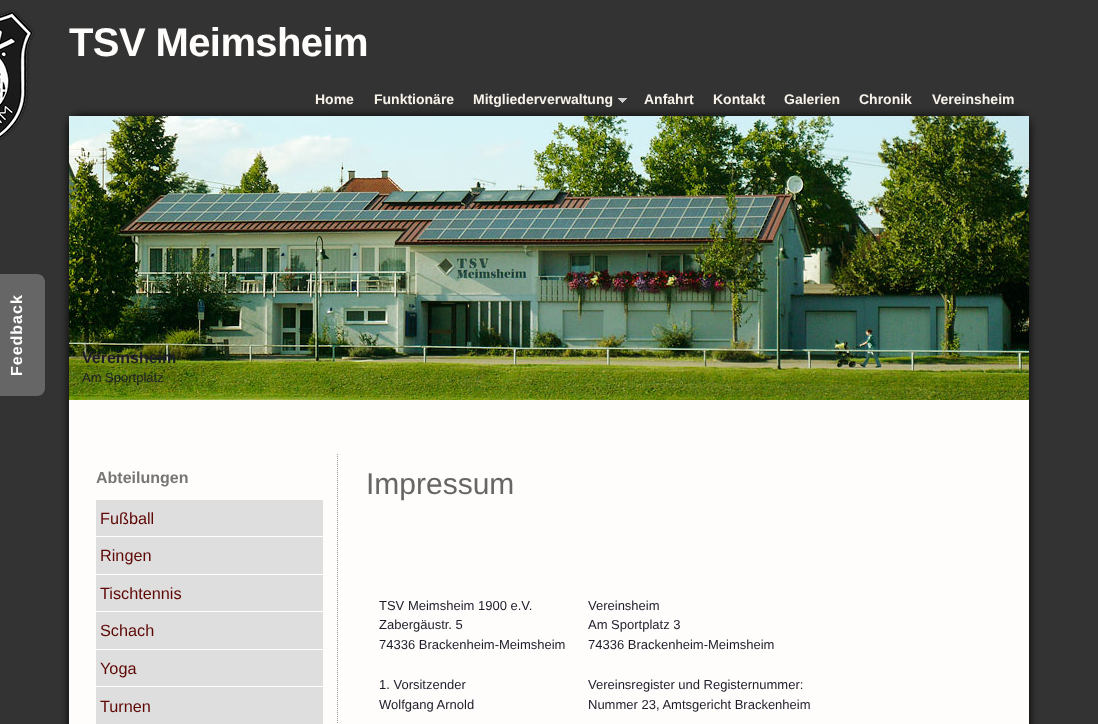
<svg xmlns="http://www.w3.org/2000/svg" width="1098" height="724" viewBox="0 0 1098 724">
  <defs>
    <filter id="blur1" x="-50%" y="-200%" width="200%" height="500%"><feGaussianBlur stdDeviation="5"/></filter>
  </defs>
  <rect width="100%" height="100%" fill="#333333"/>
  <path d="M-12 396V274H37C42 274 45 278 45 282V388C45 392 42 396 37 396Z" fill="#666666"/>
  <text x="22" y="376" transform="rotate(-90 22 376)" font-family="Liberation Sans" font-size="16" font-weight="bold" letter-spacing="1" fill="#fffdfb">Feedback</text>
  <image x="0" y="10" width="34" height="130" href="img1.png"/>
  <text x="69" y="56" font-family="Liberation Sans" font-size="40" font-weight="bold" letter-spacing="-0.6" fill="#fffdfb">TSV Meimsheim</text>
  <text x="315" y="104" font-family="Liberation Sans" font-size="14" font-weight="bold" fill="#f7f2ea">Home</text>
  <text x="374" y="104" font-family="Liberation Sans" font-size="14" font-weight="bold" fill="#f7f2ea">Funktionäre</text>
  <text x="473" y="104" font-family="Liberation Sans" font-size="14" font-weight="bold" fill="#f7f2ea">Mitgliederverwaltung</text>
  <image x="618" y="98" width="9" height="5" href="img2.png"/>
  <text x="644" y="104" font-family="Liberation Sans" font-size="14" font-weight="bold" fill="#f7f2ea">Anfahrt</text>
  <text x="713" y="104" font-family="Liberation Sans" font-size="14" font-weight="bold" fill="#f7f2ea">Kontakt</text>
  <text x="784" y="104" font-family="Liberation Sans" font-size="14" font-weight="bold" fill="#f7f2ea">Galerien</text>
  <text x="859" y="104" font-family="Liberation Sans" font-size="14" font-weight="bold" fill="#f7f2ea">Chronik</text>
  <text x="932" y="104" font-family="Liberation Sans" font-size="14" font-weight="bold" fill="#f7f2ea">Vereinsheim</text>
  <rect x="69" y="116" width="960" height="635" rx="12" fill="#000000" filter="url(#blur1)"/>
  <rect x="69" y="400" width="960" height="324" fill="#fffdfb"/>
  <image x="69" y="116" width="960" height="284" href="img3.png"/>
  <text x="82" y="363" font-family="Liberation Sans" font-size="16" font-weight="bold" fill="#1d1d2a">Vereinsheim</text>
  <text x="82" y="382" font-family="Liberation Sans" font-size="13" fill="#1d1d2a">Am Sportplatz</text>
  <path d="M337.5 454V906" fill="none" stroke="#999999" stroke-dasharray="1 1"/>
  <text x="96" y="483" font-family="Liberation Sans" font-size="16" font-weight="bold" fill="#767675">Abteilungen</text>
  <rect x="96" y="500" width="227" height="36" fill="#dedede"/>
  <rect x="96" y="536" width="227" height="1" fill="#ffffff"/>
  <text x="100" y="524" font-family="Liberation Sans" font-size="16.25" fill="#5d0604">Fußball</text>
  <rect x="96" y="537" width="227" height="37" fill="#dedede"/>
  <rect x="96" y="574" width="227" height="1" fill="#ffffff"/>
  <text x="100" y="561" font-family="Liberation Sans" font-size="16.25" fill="#5d0604">Ringen</text>
  <rect x="96" y="575" width="227" height="36" fill="#dedede"/>
  <rect x="96" y="611" width="227" height="1" fill="#ffffff"/>
  <text x="100" y="599" font-family="Liberation Sans" font-size="16.25" fill="#5d0604">Tischtennis</text>
  <rect x="96" y="612" width="227" height="37" fill="#dedede"/>
  <rect x="96" y="649" width="227" height="1" fill="#ffffff"/>
  <text x="100" y="636" font-family="Liberation Sans" font-size="16.25" fill="#5d0604">Schach</text>
  <rect x="96" y="650" width="227" height="36" fill="#dedede"/>
  <rect x="96" y="686" width="227" height="1" fill="#ffffff"/>
  <text x="100" y="674" font-family="Liberation Sans" font-size="16.25" fill="#5d0604">Yoga</text>
  <rect x="96" y="687" width="227" height="37" fill="#dedede"/>
  <text x="100" y="712" font-family="Liberation Sans" font-size="16.25" fill="#5d0604">Turnen</text>
  <text x="366" y="494" font-family="Liberation Sans" font-size="30" fill="#666666">Impressum</text>
  <text x="379" y="610" font-family="Liberation Sans" font-size="13" fill="#1d1d2a">TSV Meimsheim 1900 e.V.</text>
  <text x="379" y="629" font-family="Liberation Sans" font-size="13" fill="#1d1d2a">Zabergäustr. 5</text>
  <text x="379" y="649" font-family="Liberation Sans" font-size="13" fill="#1d1d2a">74336 Brackenheim-Meimsheim</text>
  <text x="588" y="610" font-family="Liberation Sans" font-size="13" fill="#1d1d2a">Vereinsheim</text>
  <text x="588" y="629" font-family="Liberation Sans" font-size="13" fill="#1d1d2a">Am Sportplatz 3</text>
  <text x="588" y="649" font-family="Liberation Sans" font-size="13" fill="#1d1d2a">74336 Brackenheim-Meimsheim</text>
  <text x="379" y="689" font-family="Liberation Sans" font-size="13" fill="#1d1d2a">1. Vorsitzender</text>
  <text x="379" y="709" font-family="Liberation Sans" font-size="13" fill="#1d1d2a">Wolfgang Arnold</text>
  <text x="588" y="689" font-family="Liberation Sans" font-size="13" fill="#1d1d2a">Vereinsregister und Registernummer:</text>
  <text x="588" y="709" font-family="Liberation Sans" font-size="13" fill="#1d1d2a">Nummer 23, Amtsgericht Brackenheim</text>
</svg>
